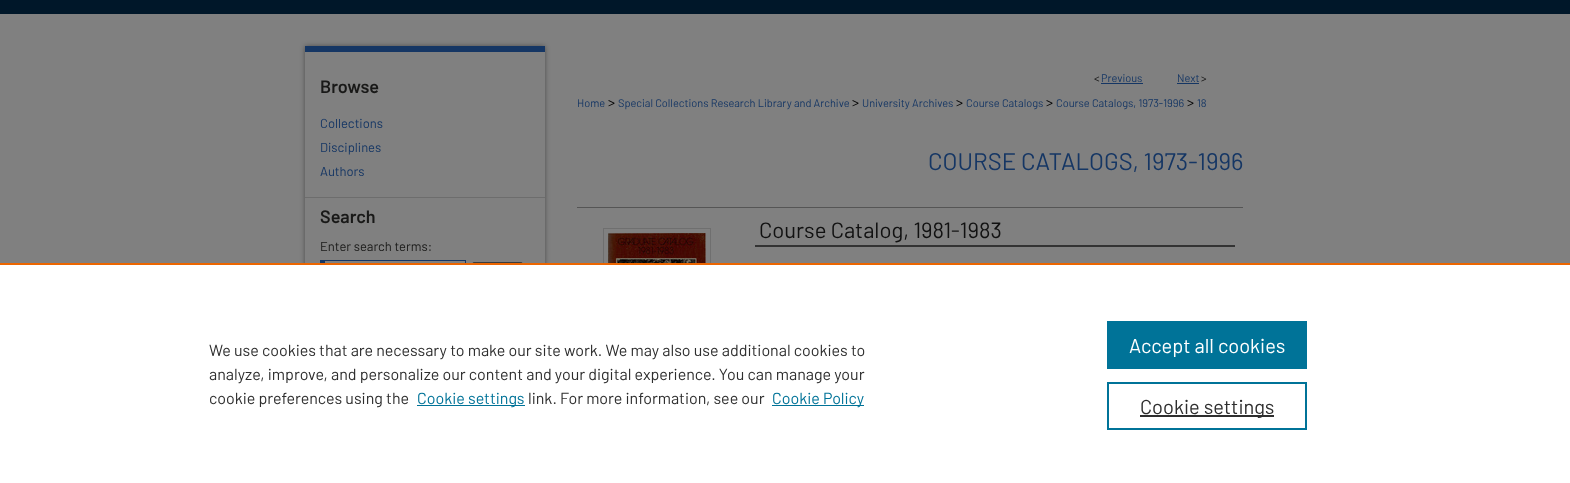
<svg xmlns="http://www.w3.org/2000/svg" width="1570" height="483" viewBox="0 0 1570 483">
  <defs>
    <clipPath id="clip1"><path d="M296 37H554V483H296ZM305 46H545V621H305Z" clip-rule="evenodd"/></clipPath>
    <filter id="blur1" x="-50%" y="-200%" width="200%" height="500%"><feGaussianBlur stdDeviation="2.5"/></filter>
  </defs>
  <rect width="100%" height="100%" fill="#808080"/>
  <rect x="0" y="0" width="1570" height="14" fill="#001729"/>
  <g clip-path="url(#clip1)">
    <rect x="305" y="46" width="240" height="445" fill="#000000" fill-opacity="0.4" filter="url(#blur1)"/>
  </g>
  <rect x="305" y="46" width="240" height="6" fill="#153664"/>
  <text x="320" y="93" font-family="Barlow" font-size="18" font-weight="600" fill="#191918">Browse</text>
  <text x="320" y="128" font-family="Barlow" font-size="13" fill="#153664">Collections</text>
  <text x="320" y="152" font-family="Barlow" font-size="13" fill="#153664">Disciplines</text>
  <text x="320" y="176" font-family="Barlow" font-size="13" fill="#153664">Authors</text>
  <rect x="305" y="197" width="240" height="1" fill="#6d6d6d"/>
  <text x="320" y="223" font-family="Barlow" font-size="18" font-weight="600" fill="#191918">Search</text>
  <text x="320" y="251" font-family="Barlow" font-size="13" fill="#191918">Enter search terms:</text>
  <rect x="320" y="260" width="146" height="1" fill="#153664"/>
  <rect x="465" y="260" width="1" height="3" fill="#153664"/>
  <rect x="320" y="261" width="5" height="2" fill="#153664"/>
  <rect x="472.5" y="262.5" width="50" height="17" rx="1.5" fill="none" stroke="#3b3b3b"/>
  <text x="1094" y="82" font-family="Barlow" font-size="11" fill="#111111">&lt;</text>
  <text x="1101" y="82" font-family="Barlow" font-size="11" fill="#153664">Previous</text>
  <rect x="1101" y="83" width="42" height="1" fill="#153664"/>
  <text x="1177" y="82" font-family="Barlow" font-size="11" fill="#153664">Next</text>
  <rect x="1177" y="83" width="22" height="1" fill="#153664"/>
  <text x="1201" y="82" font-family="Barlow" font-size="11" fill="#111111">&gt;</text>
  <text x="577" y="107" font-family="Barlow" font-size="11" fill="#153664">Home</text>
  <text x="608" y="107" font-family="Barlow" font-size="14" fill="#000000">&gt;</text>
  <text x="618" y="107" font-family="Barlow" font-size="11" fill="#153664">Special Collections Research Library and Archive</text>
  <text x="852" y="107" font-family="Barlow" font-size="14" fill="#000000">&gt;</text>
  <text x="862" y="107" font-family="Barlow" font-size="11" fill="#153664">University Archives</text>
  <text x="956" y="107" font-family="Barlow" font-size="14" fill="#000000">&gt;</text>
  <text x="966" y="107" font-family="Barlow" font-size="11" fill="#153664">Course Catalogs</text>
  <text x="1046" y="107" font-family="Barlow" font-size="14" fill="#000000">&gt;</text>
  <text x="1056" y="107" font-family="Barlow" font-size="11" fill="#153664">Course Catalogs, 1973-1996</text>
  <text x="1187" y="107" font-family="Barlow" font-size="14" fill="#000000">&gt;</text>
  <text x="1197" y="107" font-family="Barlow" font-size="11" fill="#153664">18</text>
  <text x="928" y="170" font-family="Barlow" font-size="24" fill="#153664">COURSE CATALOGS, 1973-1996</text>
  <rect x="603.5" y="228.5" width="107" height="159" fill="none" stroke="#6f6f6f"/>
  <image x="608" y="233" width="98" height="30" href="img1.png"/>
  <rect x="577" y="207" width="666" height="1" fill="#555555"/>
  <text x="759" y="238" font-family="Barlow" font-size="22" fill="#111111">Course Catalog, 1981-1983</text>
  <rect x="755" y="245" width="480" height="2" fill="#333333"/>
  <rect x="0" y="265" width="1570" height="218" fill="#ffffff"/>
  <rect x="0" y="263" width="1570" height="2" fill="#eb6500"/>
  <text x="209" y="356" font-family="Barlow" font-size="16" fill="#2e2e2e">We use cookies that are necessary to make our site work. We may also use additional cookies to</text>
  <text x="209" y="380" font-family="Barlow" font-size="16" fill="#2e2e2e">analyze, improve, and personalize our content and your digital experience. You can manage your</text>
  <text x="209" y="404" font-family="Barlow" font-size="16" fill="#2e2e2e">cookie preferences using the</text>
  <rect x="417" y="405" width="108" height="1" fill="#007398"/>
  <text x="417" y="404" font-family="Barlow" font-size="16" fill="#007398">Cookie settings</text>
  <text x="528" y="404" font-family="Barlow" font-size="16" fill="#2e2e2e">link. For more information, see our</text>
  <rect x="772" y="405" width="92" height="1" fill="#007398"/>
  <text x="772" y="404" font-family="Barlow" font-size="16" fill="#007398">Cookie Policy</text>
  <rect x="1107" y="321" width="200" height="48" fill="#007398"/>
  <text x="1129" y="353" font-family="Barlow" font-size="20" fill="#ffffff">Accept all cookies</text>
  <rect x="1108" y="383" width="198" height="46" fill="none" stroke="#007398" stroke-width="2"/>
  <rect x="1140" y="415" width="134" height="2" fill="#2e2e2e"/>
  <text x="1140" y="414" font-family="Barlow" font-size="20" fill="#2e2e2e">Cookie settings</text>
</svg>
